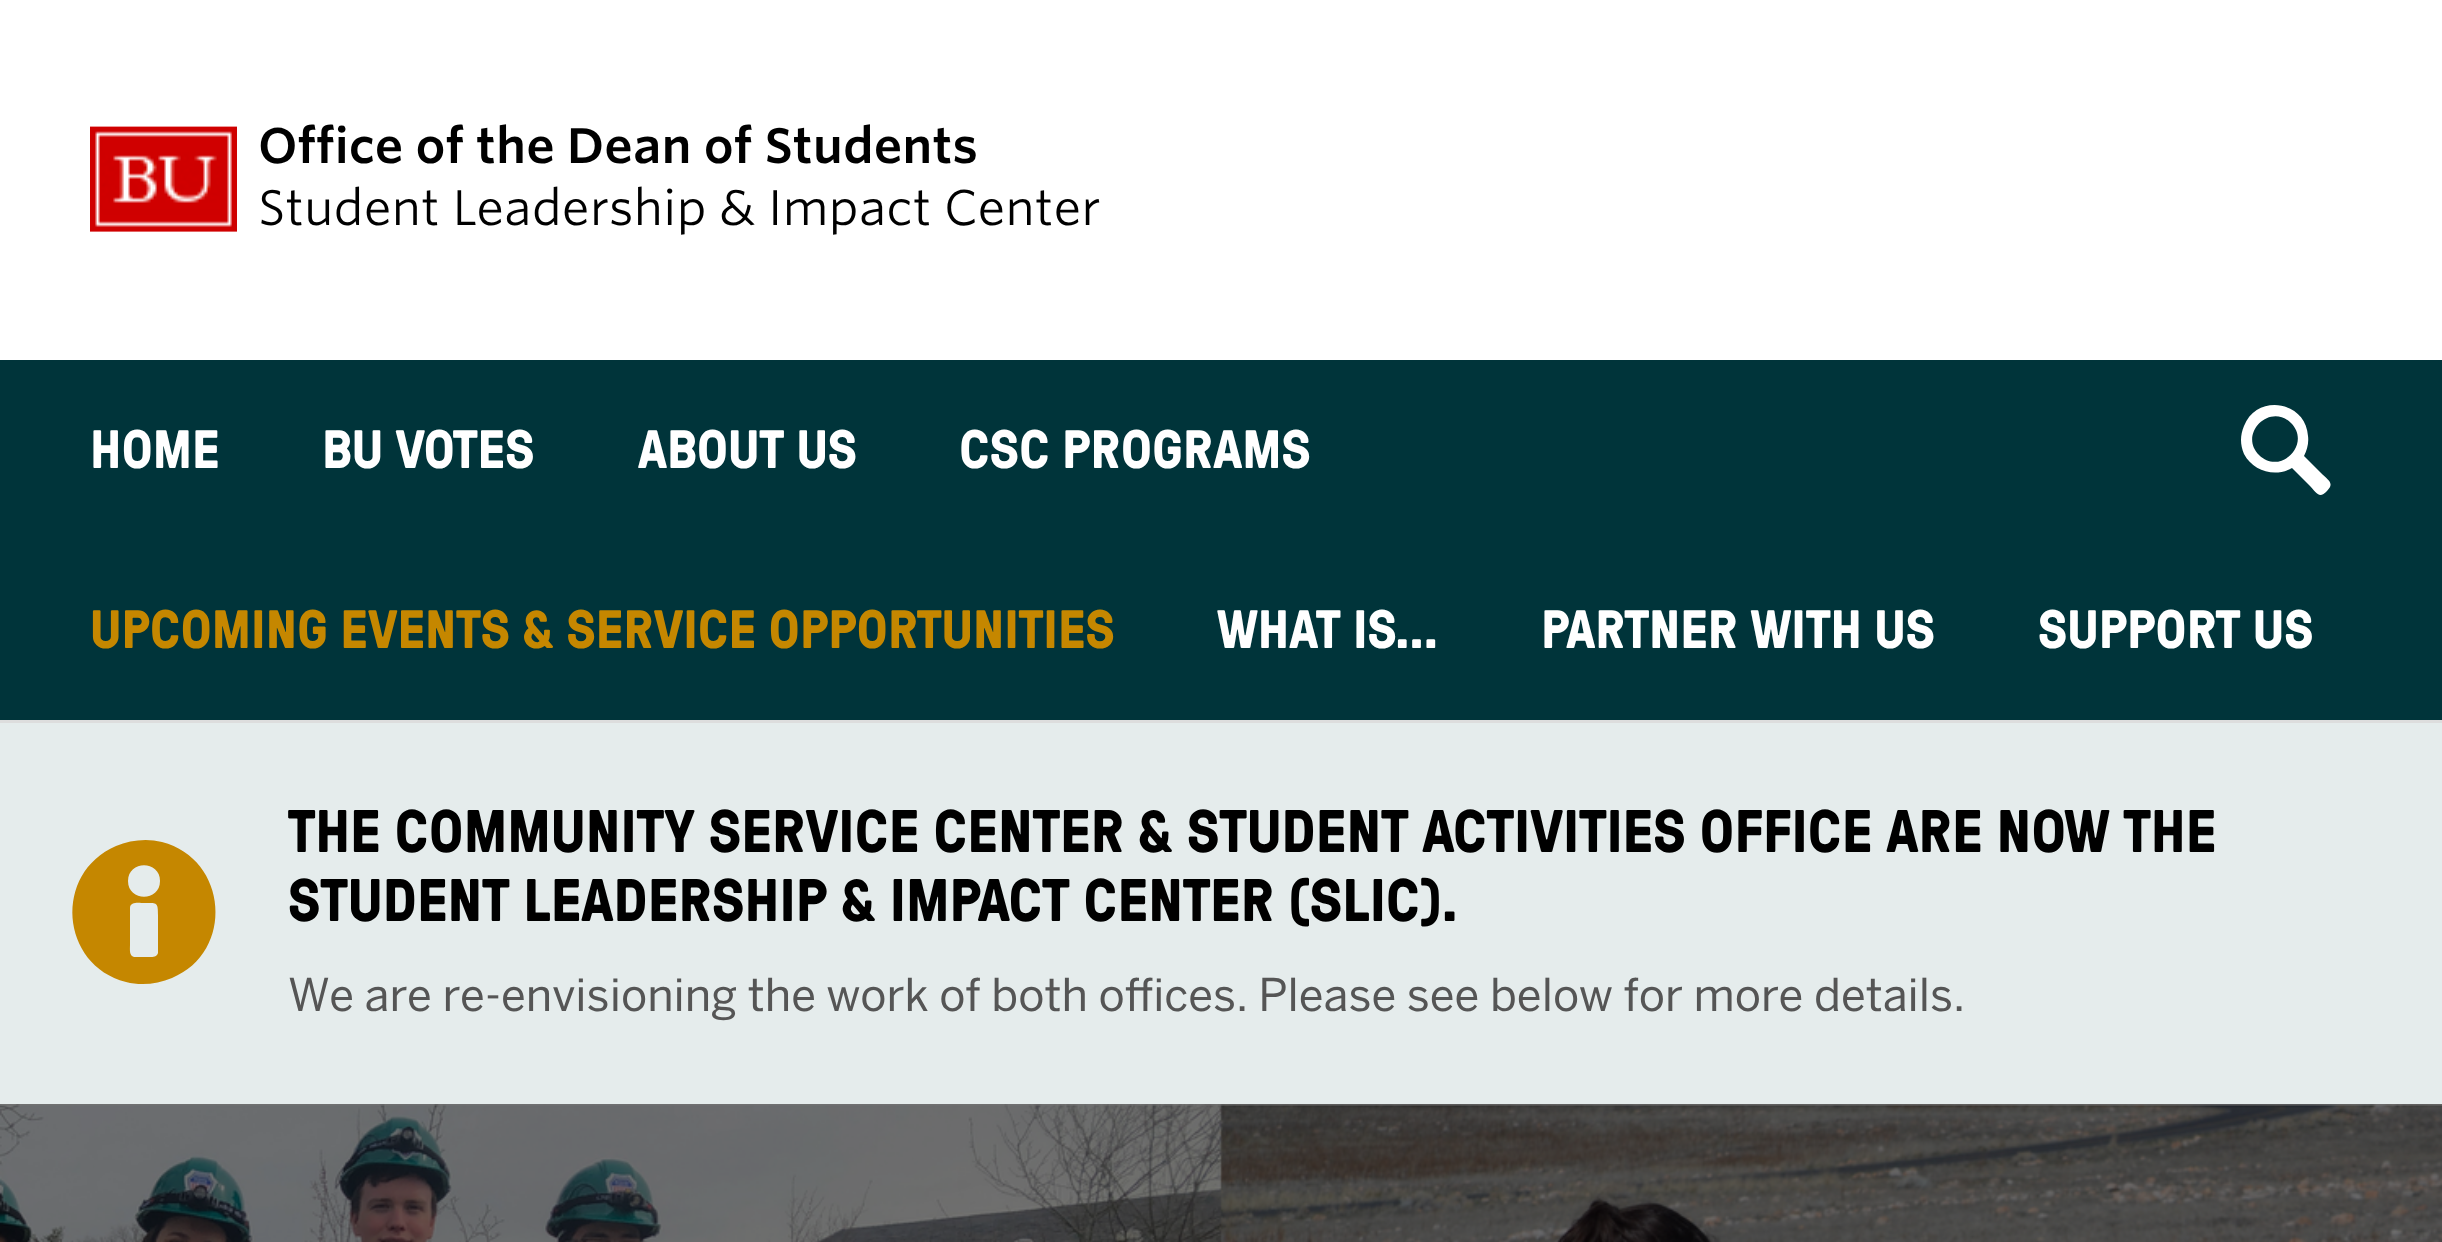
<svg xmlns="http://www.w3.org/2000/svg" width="2442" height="1242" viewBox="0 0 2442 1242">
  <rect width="100%" height="100%" fill="#ffffff"/>
  <rect x="0" y="720" width="2442" height="3" fill="#dddddd"/>
  <image x="90" y="126" width="147" height="106" href="img1.png"/>
  <text x="258" y="163" font-family="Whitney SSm" font-size="48" font-weight="600" fill="#000000">Office of the Dean of Students</text>
  <text x="258" y="225" font-family="Whitney SSm" font-size="48" fill="#000000">Student Leadership &amp; Impact Center</text>
  <rect x="0" y="360" width="2442" height="360" fill="#00343a"/>
  <path d="M2304 456C2307 450 2309 443 2308 436C2306 401 2257 393 2244 426C2240 435 2240 445 2244 454C2253 471 2275 478 2292 468L2309 485C2316 492 2319 500 2327 491C2335 483 2328 480 2321 473ZM2259 455C2238 434 2270 402 2291 423C2312 444 2280 476 2259 455Z" fill="#ffffff"/>
  <text x="90" y="468" font-family="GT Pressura" font-size="54" font-weight="bold" fill="#ffffff">HOME</text>
  <text x="322" y="468" font-family="GT Pressura" font-size="54" font-weight="bold" fill="#ffffff">BU VOTES</text>
  <text x="638" y="468" font-family="GT Pressura" font-size="54" font-weight="bold" fill="#ffffff">ABOUT US</text>
  <text x="959" y="468" font-family="GT Pressura" font-size="54" font-weight="bold" fill="#ffffff">CSC PROGRAMS</text>
  <text x="90" y="648" font-family="GT Pressura" font-size="54" font-weight="bold" fill="#c58700">UPCOMING EVENTS &amp; SERVICE OPPORTUNITIES</text>
  <text x="1217" y="648" font-family="GT Pressura" font-size="54" font-weight="bold" fill="#ffffff">WHAT IS…</text>
  <text x="1541" y="648" font-family="GT Pressura" font-size="54" font-weight="bold" fill="#ffffff">PARTNER WITH US</text>
  <text x="2038" y="648" font-family="GT Pressura" font-size="54" font-weight="bold" fill="#ffffff">SUPPORT US</text>
  <rect x="0" y="723" width="2442" height="381" fill="#e5ecec"/>
  <path d="M116 846C53 873 60 965 126 982C141 986 158 984 172 978C235 952 228 859 162 842C147 838 130 840 116 846ZM128 881C128 860 160 860 160 881C160 902 128 902 128 881ZM130 908C130 901 140 903 144 903C157 903 158 902 158 915V953C157 957 153 957 150 957H134C129 956 130 949 130 945Z" fill="#c58700"/>
  <text x="288" y="852" font-family="GT Pressura" font-size="60" font-weight="bold" fill="#000000">THE COMMUNITY SERVICE CENTER &amp; STUDENT ACTIVITIES OFFICE ARE NOW THE</text>
  <text x="288" y="921" font-family="GT Pressura" font-size="60" font-weight="bold" fill="#000000">STUDENT LEADERSHIP &amp; IMPACT CENTER (SLIC).</text>
  <text x="288" y="1011" font-family="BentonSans" font-size="45" fill="#555555">We are re-envisioning the work of both offices. Please see below for more details.</text>
  <image x="0" y="1104" width="2442" height="138" href="img2.png"/>
</svg>
